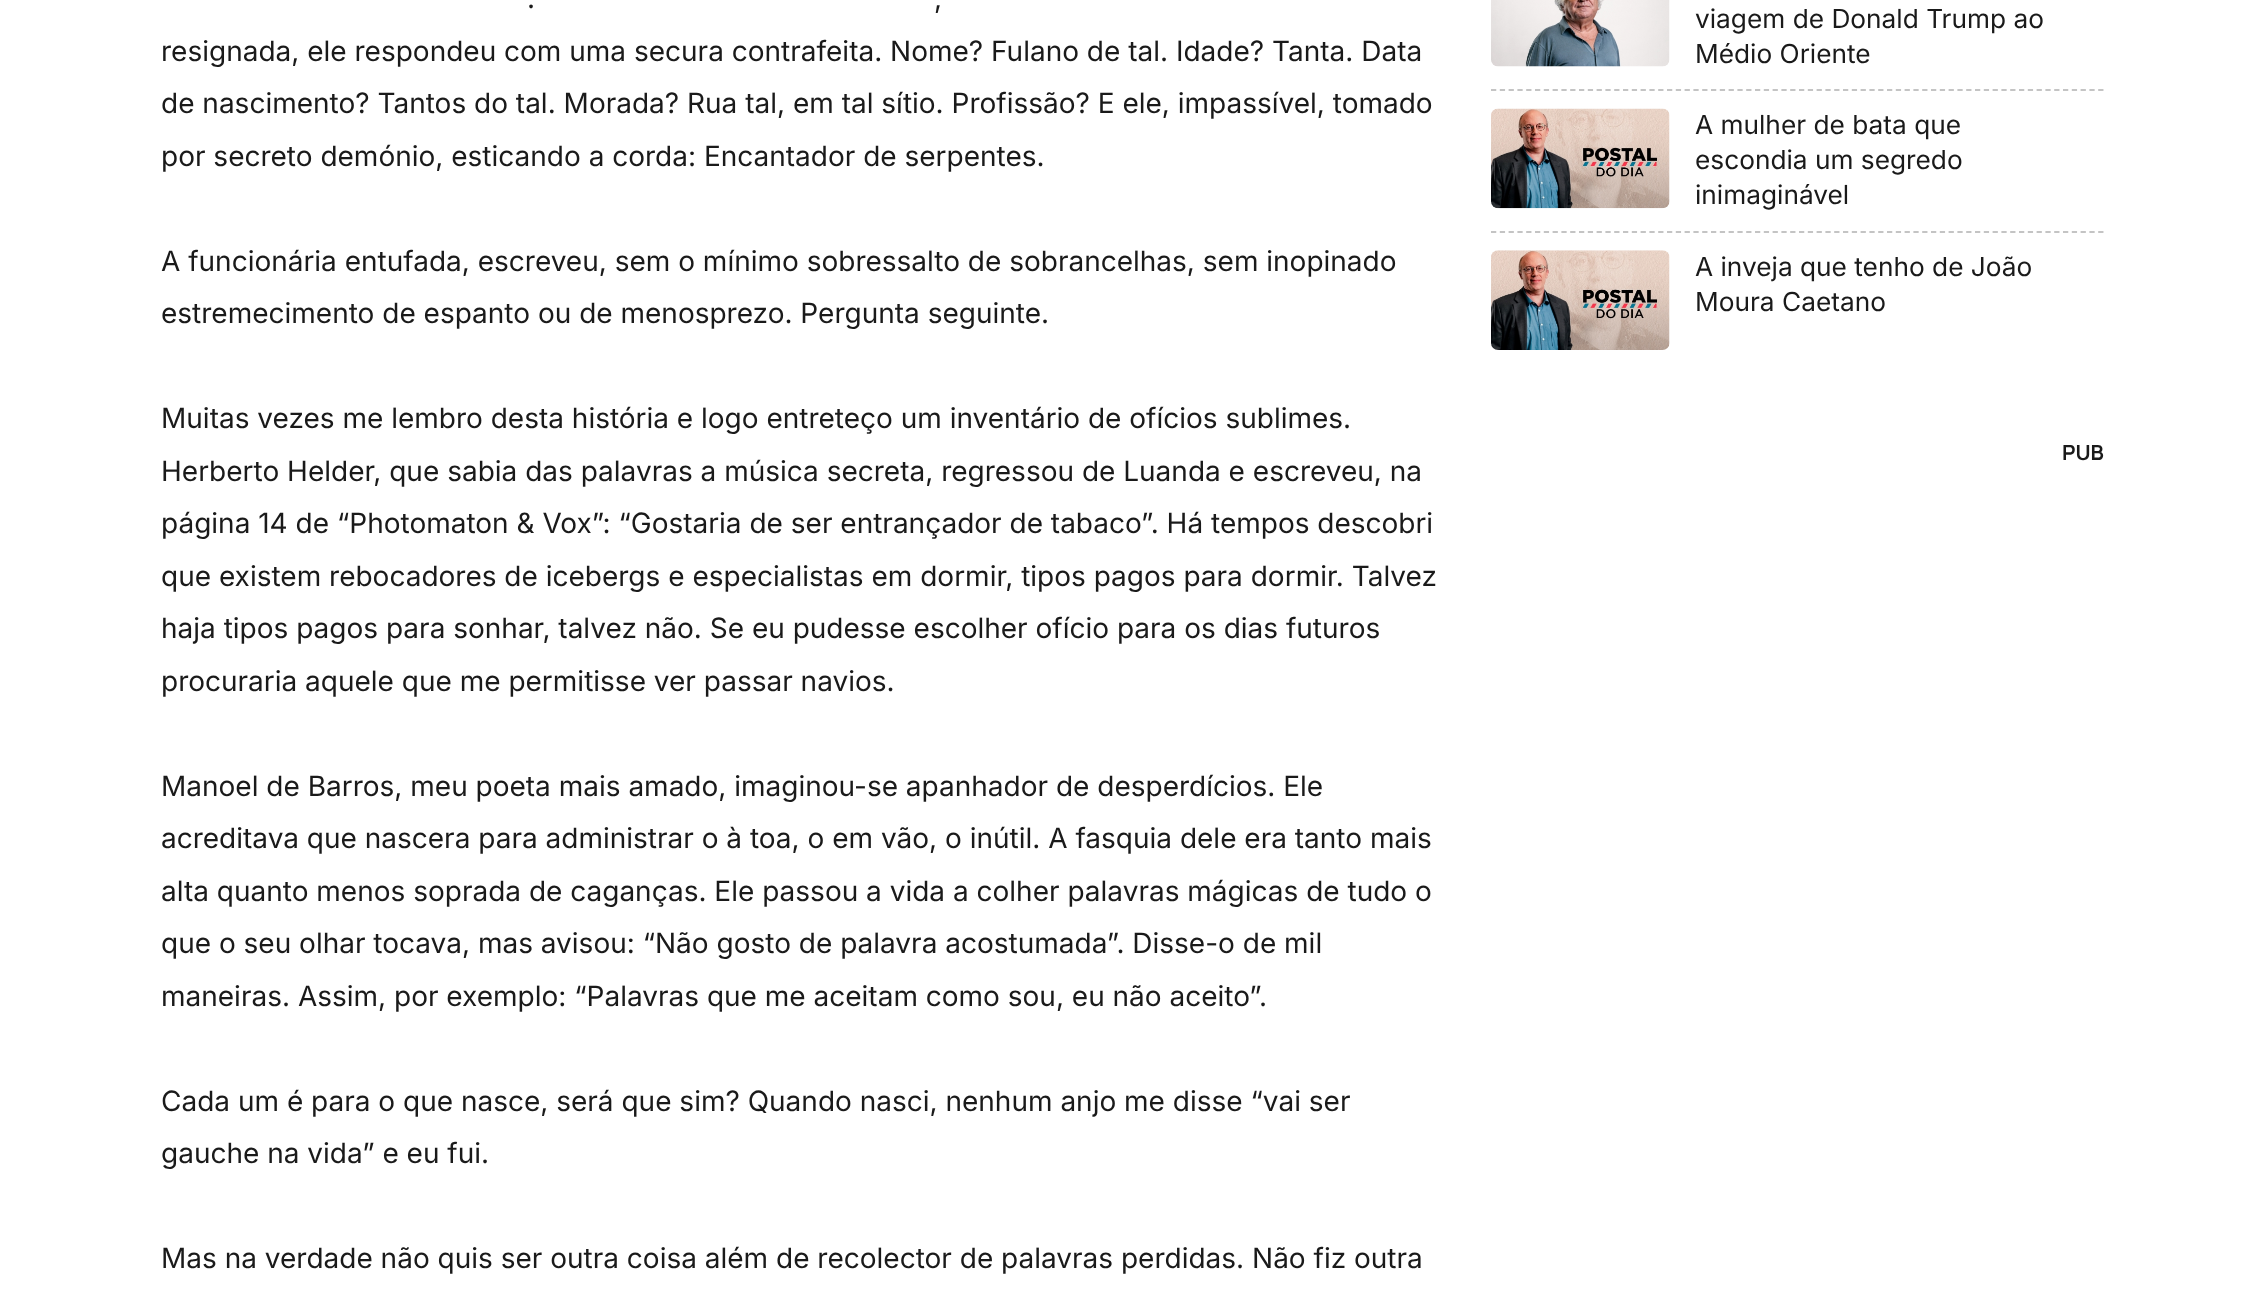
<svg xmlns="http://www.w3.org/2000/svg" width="2263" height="1296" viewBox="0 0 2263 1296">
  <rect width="100%" height="100%" fill="#ffffff"/>
  <text x="527" y="8" font-family="Inter" font-size="28" fill="#1a1a1a">.</text>
  <text x="934" y="8" font-family="Inter" font-size="28" fill="#1a1a1a">,</text>
  <text x="161" y="61" font-family="Inter" font-size="28" fill="#1a1a1a">resignada, ele respondeu com uma secura contrafeita. Nome? Fulano de tal. Idade? Tanta. Data</text>
  <text x="161" y="113" font-family="Inter" font-size="28" fill="#1a1a1a">de nascimento? Tantos do tal. Morada? Rua tal, em tal sítio. Profissão? E ele, impassível, tomado</text>
  <text x="161" y="166" font-family="Inter" font-size="28" fill="#1a1a1a">por secreto demónio, esticando a corda: Encantador de serpentes.</text>
  <text x="161" y="271" font-family="Inter" font-size="28" fill="#1a1a1a">A funcionária entufada, escreveu, sem o mínimo sobressalto de sobrancelhas, sem inopinado</text>
  <text x="161" y="323" font-family="Inter" font-size="28" fill="#1a1a1a">estremecimento de espanto ou de menosprezo. Pergunta seguinte.</text>
  <text x="161" y="428" font-family="Inter" font-size="28" fill="#1a1a1a">Muitas vezes me lembro desta história e logo entreteço um inventário de ofícios sublimes.</text>
  <text x="161" y="481" font-family="Inter" font-size="28" fill="#1a1a1a">Herberto Helder, que sabia das palavras a música secreta, regressou de Luanda e escreveu, na</text>
  <text x="161" y="533" font-family="Inter" font-size="28" fill="#1a1a1a">página 14 de “Photomaton &amp; Vox”: “Gostaria de ser entrançador de tabaco”. Há tempos descobri</text>
  <text x="161" y="586" font-family="Inter" font-size="28" fill="#1a1a1a">que existem rebocadores de icebergs e especialistas em dormir, tipos pagos para dormir. Talvez</text>
  <text x="161" y="638" font-family="Inter" font-size="28" fill="#1a1a1a">haja tipos pagos para sonhar, talvez não. Se eu pudesse escolher ofício para os dias futuros</text>
  <text x="161" y="691" font-family="Inter" font-size="28" fill="#1a1a1a">procuraria aquele que me permitisse ver passar navios.</text>
  <text x="161" y="796" font-family="Inter" font-size="28" fill="#1a1a1a">Manoel de Barros, meu poeta mais amado, imaginou-se apanhador de desperdícios. Ele</text>
  <text x="161" y="848" font-family="Inter" font-size="28" fill="#1a1a1a">acreditava que nascera para administrar o à toa, o em vão, o inútil. A fasquia dele era tanto mais</text>
  <text x="161" y="901" font-family="Inter" font-size="28" fill="#1a1a1a">alta quanto menos soprada de caganças. Ele passou a vida a colher palavras mágicas de tudo o</text>
  <text x="161" y="953" font-family="Inter" font-size="28" fill="#1a1a1a">que o seu olhar tocava, mas avisou: “Não gosto de palavra acostumada”. Disse-o de mil</text>
  <text x="161" y="1006" font-family="Inter" font-size="28" fill="#1a1a1a">maneiras. Assim, por exemplo: “Palavras que me aceitam como sou, eu não aceito”.</text>
  <text x="161" y="1111" font-family="Inter" font-size="28" fill="#1a1a1a">Cada um é para o que nasce, será que sim? Quando nasci, nenhum anjo me disse “vai ser</text>
  <text x="161" y="1163" font-family="Inter" font-size="28" fill="#1a1a1a">gauche na vida” e eu fui.</text>
  <text x="161" y="1268" font-family="Inter" font-size="28" fill="#1a1a1a">Mas na verdade não quis ser outra coisa além de recolector de palavras perdidas. Não fiz outra</text>
  <path d="M1491 90H2103.5" fill="none" stroke="#c4c4c4" stroke-width="1.8" stroke-dasharray="5.25 3.55"/>
  <image x="1491" y="0" width="179" height="67" href="img1.png"/>
  <text x="1695" y="28" font-family="Inter" font-size="26.25" fill="#1a1a1a">viagem de Donald Trump ao</text>
  <text x="1695" y="63" font-family="Inter" font-size="26.25" fill="#1a1a1a">Médio Oriente</text>
  <path d="M1491 232H2103.5" fill="none" stroke="#c4c4c4" stroke-width="1.8" stroke-dasharray="5.25 3.55"/>
  <image x="1491" y="108" width="179" height="101" href="img2.png"/>
  <text x="1695" y="134" font-family="Inter" font-size="26.25" fill="#1a1a1a">A mulher de bata que</text>
  <text x="1695" y="169" font-family="Inter" font-size="26.25" fill="#1a1a1a">escondia um segredo</text>
  <text x="1695" y="204" font-family="Inter" font-size="26.25" fill="#1a1a1a">inimaginável</text>
  <image x="1491" y="250" width="179" height="100" href="img3.png"/>
  <text x="1695" y="276" font-family="Inter" font-size="26.25" fill="#1a1a1a">A inveja que tenho de João</text>
  <text x="1695" y="311" font-family="Inter" font-size="26.25" fill="#1a1a1a">Moura Caetano</text>
  <text x="2062" y="460" font-family="Manrope" font-size="21" font-weight="bold" fill="#1a1a1a">PUB</text>
</svg>
